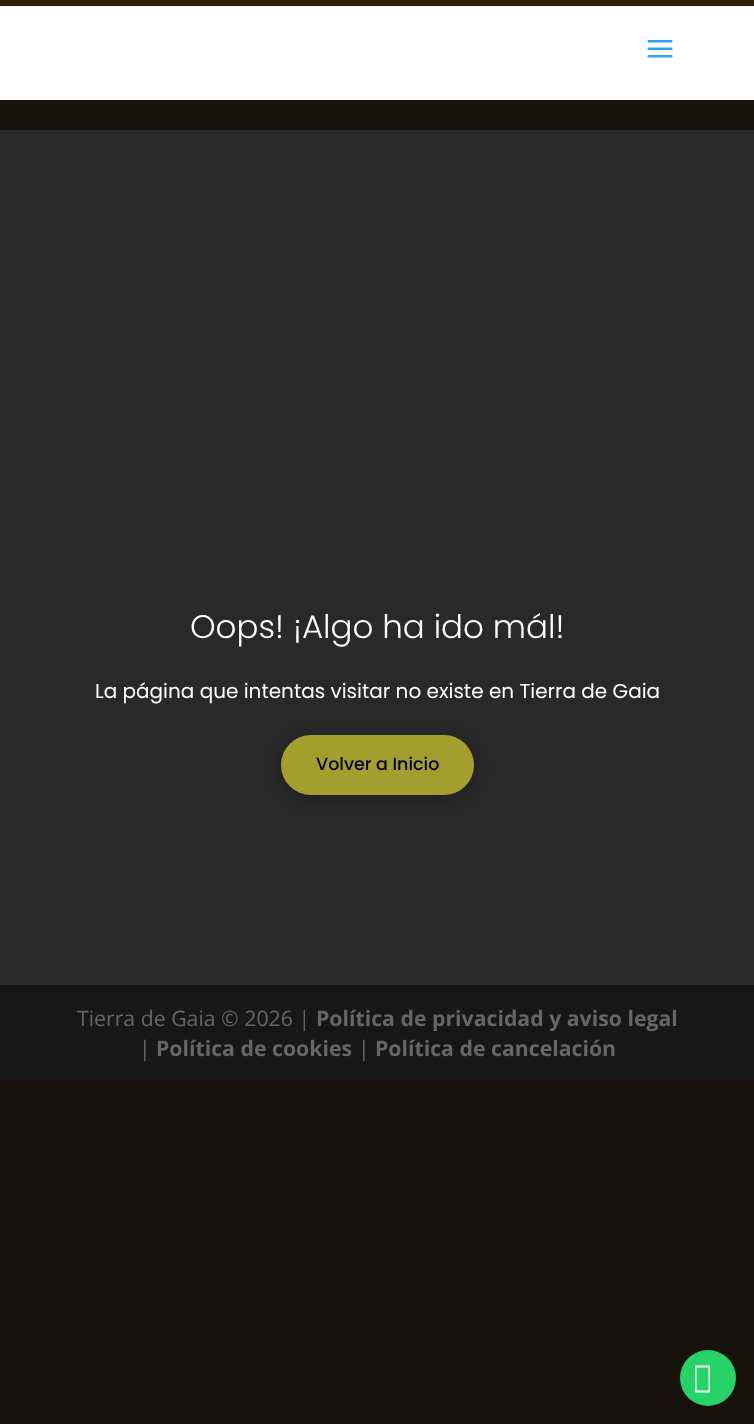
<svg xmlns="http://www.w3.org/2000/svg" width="754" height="1424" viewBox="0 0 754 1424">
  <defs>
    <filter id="blur1" x="-50%" y="-200%" width="200%" height="500%"><feGaussianBlur stdDeviation="11"/></filter>
  </defs>
  <rect width="100%" height="100%" fill="#18120d"/>
  <rect x="0" y="0" width="754" height="6" fill="#2d2109"/>
  <rect x="0" y="6" width="754" height="94" fill="#ffffff"/>
  <image x="647" y="40" width="26" height="18" href="img1.png"/>
  <rect x="0" y="130" width="754" height="855" fill="#292929"/>
  <text x="190" y="638" font-family="Poppins" font-size="32.5" font-weight="300" fill="#ffffff">Oops! ¡Algo ha ido mál!</text>
  <text x="95" y="698" font-family="Poppins" font-size="20" fill="#ffffff">La página que intentas visitar no existe en Tierra de Gaia</text>
  <rect x="281" y="738" width="193" height="60" rx="30" fill="#000000" fill-opacity="0.3" filter="url(#blur1)"/>
  <rect x="281" y="735" width="193" height="60" rx="30" fill="#a39f2f"/>
  <text x="316" y="770" font-family="Poppins" font-size="17.5" font-weight="500" fill="#000000">Volver a Inicio</text>
  <rect x="0" y="985" width="754" height="96" fill="#171717"/>
  <text x="77" y="1026" font-family="Open Sans" font-size="21.25" fill="#666666">Tierra de Gaia © 2026 |</text>
  <text x="316" y="1026" font-family="Open Sans" font-size="21.25" font-weight="bold" fill="#666666">Política de privacidad y aviso legal</text>
  <text x="139" y="1056" font-family="Open Sans" font-size="21.25" fill="#666666">|</text>
  <text x="156" y="1056" font-family="Open Sans" font-size="21.25" font-weight="bold" fill="#666666">Política de cookies</text>
  <text x="358" y="1056" font-family="Open Sans" font-size="21.25" fill="#666666">|</text>
  <text x="375" y="1056" font-family="Open Sans" font-size="21.25" font-weight="bold" fill="#666666">Política de cancelación</text>
  <circle cx="708" cy="1378" r="28" fill="#25d366"/>
  <path d="M695 1392.5V1365.5H710V1392.5ZM696.5 1390.5H708.5V1367.5H696.5Z" fill="#ffffff"/>
</svg>
